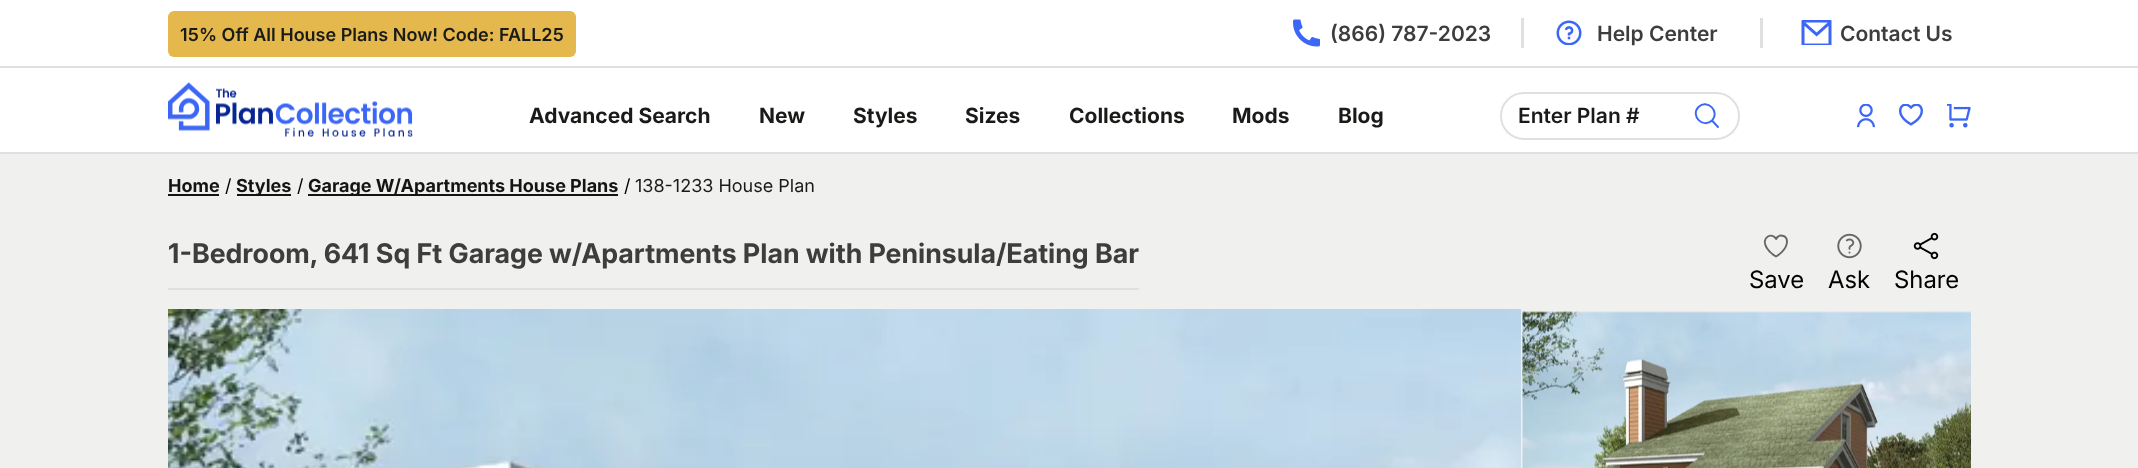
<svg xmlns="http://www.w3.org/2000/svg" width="2138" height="468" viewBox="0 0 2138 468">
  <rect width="100%" height="100%" fill="#ffffff"/>
  <rect x="0" y="66" width="2138" height="2" fill="#e0e0e0"/>
  <rect x="168" y="11" width="408" height="46" rx="6" fill="#e5b84d"/>
  <text x="180" y="41" font-family="Inter" font-size="18" font-weight="600" fill="#1a1a19">15% Off All House Plans Now! Code: FALL25</text>
  <image x="1293" y="19" width="27" height="28" href="img1.png"/>
  <text x="1330" y="41" font-family="Inter" font-size="21" font-weight="600" fill="#3d3d3d">(866) 787-2023</text>
  <rect x="1521" y="18" width="3" height="30" fill="#e0e0e0"/>
  <image x="1556" y="20" width="26" height="25" href="img2.png"/>
  <text x="1597" y="41" font-family="Inter" font-size="21" font-weight="600" fill="#3d3d3d">Help Center</text>
  <rect x="1760" y="18" width="3" height="30" fill="#e0e0e0"/>
  <image x="1801" y="20" width="31" height="25" href="img3.png"/>
  <text x="1840" y="41" font-family="Inter" font-size="21" font-weight="600" fill="#3d3d3d">Contact Us</text>
  <rect x="0" y="152" width="2138" height="2" fill="#e0e0e0"/>
  <image x="168" y="82" width="245" height="55" href="img4.png"/>
  <text x="529" y="123" font-family="Inter" font-size="21" font-weight="bold" fill="#1a1a19">Advanced Search</text>
  <text x="759" y="123" font-family="Inter" font-size="21" font-weight="bold" fill="#1a1a19">New</text>
  <text x="853" y="123" font-family="Inter" font-size="21" font-weight="bold" fill="#1a1a19">Styles</text>
  <text x="965" y="123" font-family="Inter" font-size="21" font-weight="bold" fill="#1a1a19">Sizes</text>
  <text x="1069" y="123" font-family="Inter" font-size="21" font-weight="bold" fill="#1a1a19">Collections</text>
  <text x="1232" y="123" font-family="Inter" font-size="21" font-weight="bold" fill="#1a1a19">Mods</text>
  <text x="1338" y="123" font-family="Inter" font-size="21" font-weight="bold" fill="#1a1a19">Blog</text>
  <rect x="1501" y="93" width="238" height="46" rx="23" fill="none" stroke="#e0e0e0" stroke-width="2"/>
  <text x="1518" y="123" font-family="Inter" font-size="21" font-weight="600" fill="#1a1a19">Enter Plan #</text>
  <path d="M1718 127L1712 120.5M1712 120.5C1720.5 111.5 1707 98.5 1698.5 107C1690 115.5 1703 129 1712 120.5Z" fill="none" stroke="#3c66f6" stroke-width="1.9" stroke-linecap="round" stroke-linejoin="round"/>
  <image x="1857" y="104" width="18" height="24" href="img5.png"/>
  <image x="1899" y="104" width="24" height="22" href="img6.png"/>
  <image x="1947" y="104" width="24" height="24" href="img7.png"/>
  <rect x="0" y="154" width="2138" height="314" fill="#f0f0ef"/>
  <text x="168" y="192" font-family="Inter" font-size="18" font-weight="bold" fill="#141414">Home</text>
  <rect x="168" y="194" width="51" height="2" fill="#141414"/>
  <text x="225" y="192" font-family="Inter" font-size="18" fill="#000000">/</text>
  <rect x="237" y="194" width="54" height="2" fill="#141414"/>
  <text x="236" y="192" font-family="Inter" font-size="18" font-weight="bold" fill="#141414">Styles</text>
  <text x="297" y="192" font-family="Inter" font-size="18" fill="#000000">/</text>
  <rect x="308" y="194" width="310" height="2" fill="#141414"/>
  <text x="308" y="192" font-family="Inter" font-size="18" font-weight="bold" fill="#141414">Garage W/Apartments House Plans</text>
  <text x="624" y="192" font-family="Inter" font-size="18" fill="#000000">/</text>
  <text x="635" y="192" font-family="Inter" font-size="18" fill="#1a1a19">138-1233 House Plan</text>
  <rect x="168" y="288" width="971" height="2" fill="#e0e0e0"/>
  <text x="168" y="263" font-family="'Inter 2'" font-size="27" font-weight="bold" fill="#3d3d3d">1-Bedroom, 641 Sq Ft Garage w/Apartments Plan with Peninsula/Eating Bar</text>
  <path d="M1787 241.5C1787 235 1778.5 233.5 1776 239C1773 232 1760.5 236.5 1766.5 247.5C1768.5 251 1772.5 254.5 1776 256.5C1776 256.5 1787 250.5 1787 241.5Z" fill="none" stroke="#666666" stroke-width="1.9" stroke-linecap="round" stroke-linejoin="round"/>
  <text x="1749" y="288" font-family="'Inter 2'" font-size="24" fill="#000000">Save</text>
  <image x="1837" y="233" width="25" height="26" href="img8.png"/>
  <text x="1828" y="288" font-family="'Inter 2'" font-size="24" fill="#000000">Ask</text>
  <image x="1913" y="232" width="26" height="28" href="img9.png"/>
  <text x="1894" y="288" font-family="'Inter 2'" font-size="24" fill="#000000">Share</text>
  <image x="168" y="309" width="1353" height="159" href="img10.png"/>
  <image x="1522" y="311" width="449" height="157" href="img11.png"/>
</svg>
